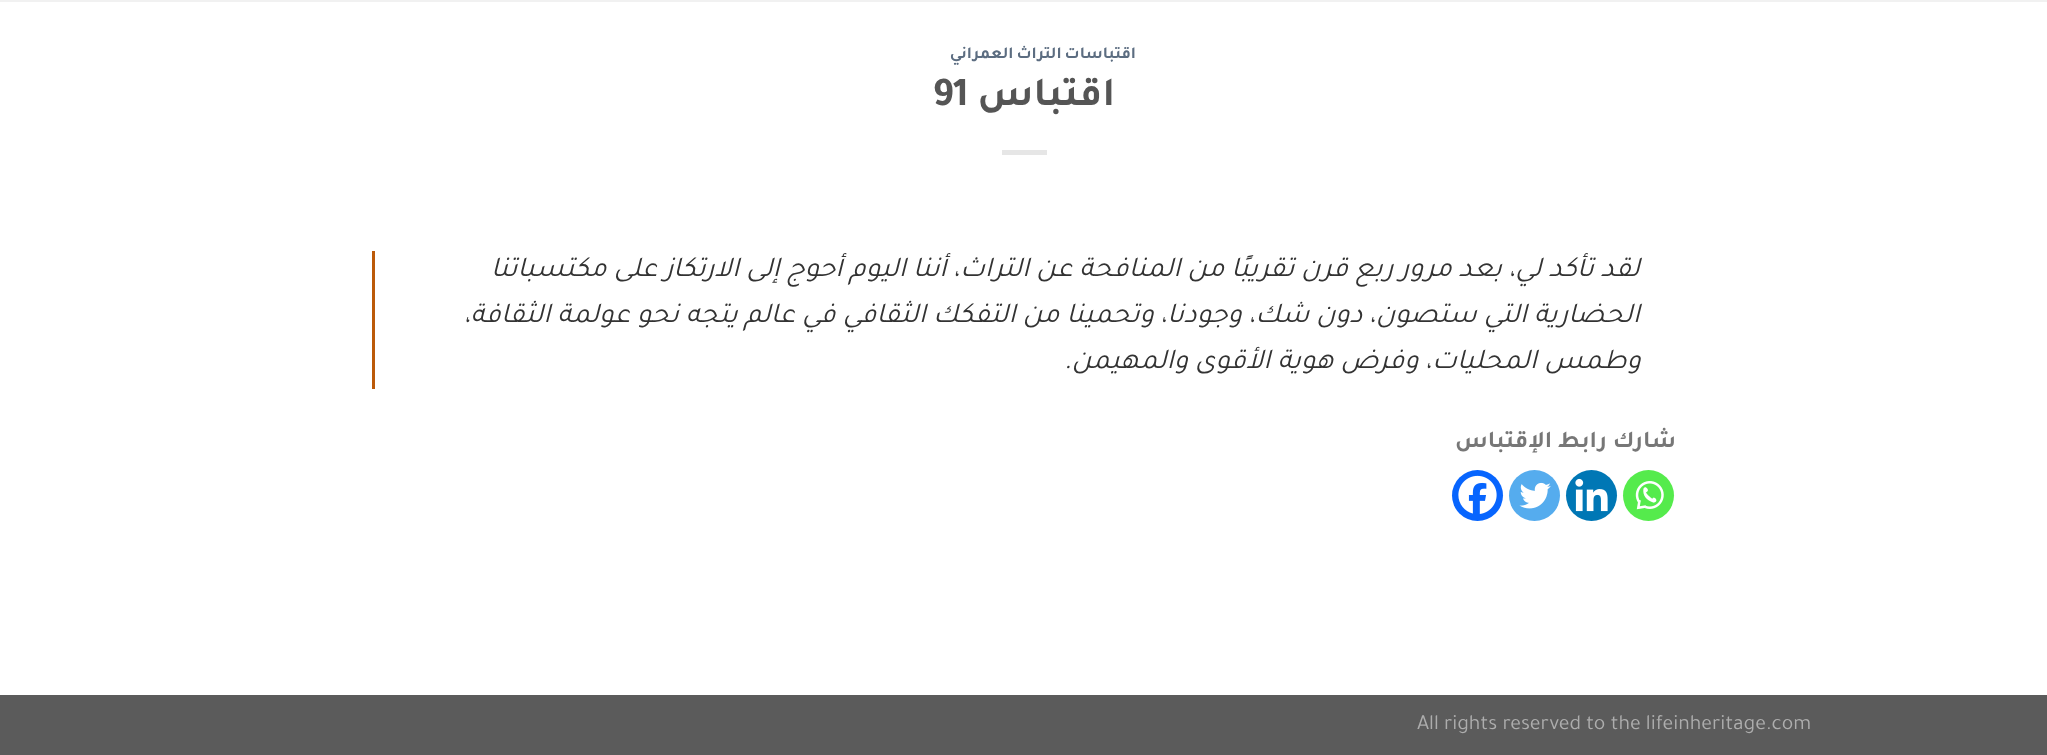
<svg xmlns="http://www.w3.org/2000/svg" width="2047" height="755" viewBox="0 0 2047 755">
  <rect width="100%" height="100%" fill="#ffffff"/>
  <rect x="0" y="0" width="2047" height="2" fill="#f1f1f1"/>
  <text x="1136" y="58" word-spacing="-1" font-family="Tajawal" font-size="16.75" font-weight="bold" letter-spacing="0.8" direction="rtl" fill="#5c6d81">اقتباسات التراث العمراني</text>
  <text x="1115" y="105" font-family="Tajawal" font-size="41" font-weight="bold" direction="rtl" fill="#555555">اقتباس</text>
  <text x="932" y="105" font-family="Tajawal" font-size="41" font-weight="bold" fill="#555555">91</text>
  <rect x="1002" y="150" width="45" height="5" fill="#e6e6e6"/>
  <rect x="372" y="251" width="3" height="138" fill="#bc5a09"/>
  <text x="1640" y="276" font-family="Tajawal" font-size="28.8" font-style="italic" direction="rtl" fill="#333333">لقد تأكد لي، بعد مرور ربع قرن تقريبًا من المنافحة عن التراث، أننا اليوم أحوج إلى الارتكاز على مكتسباتنا</text>
  <text x="1640" y="322" font-family="Tajawal" font-size="28.8" font-style="italic" direction="rtl" fill="#333333">الحضارية التي ستصون، دون شك، وجودنا، وتحمينا من التفكك الثقافي في عالم يتجه نحو عولمة الثقافة،</text>
  <text x="1641" y="368" font-family="Tajawal" font-size="28.8" font-style="italic" direction="rtl" fill="#333333">وطمس المحليات، وفرض هوية الأقوى والمهيمن.</text>
  <text x="1676" y="447" font-family="Tajawal" font-size="24" font-weight="bold" direction="rtl" fill="#777777">شارك رابط الإقتباس</text>
  <circle cx="1648.5" cy="495.5" r="25.5" fill="#55eb4c"/>
  <image x="1635" y="481" width="29" height="29" href="img1.png"/>
  <circle cx="1591.5" cy="495.5" r="25.5" fill="#0077b5"/>
  <image x="1575" y="478" width="33" height="34" href="img2.png"/>
  <circle cx="1534.5" cy="495.5" r="25.5" fill="#55acee"/>
  <image x="1519" y="482" width="32" height="27" href="img3.png"/>
  <circle cx="1477.5" cy="495.5" r="25.5" fill="#0765fe"/>
  <image x="1458" y="475" width="39" height="39" href="img4.png"/>
  <rect x="0" y="695" width="2047" height="60" fill="#5b5b5b"/>
  <text x="1417" y="729" font-family="Tajawal" font-size="21.6" fill="#adadad">All rights reserved to the lifeinheritage.com</text>
</svg>
